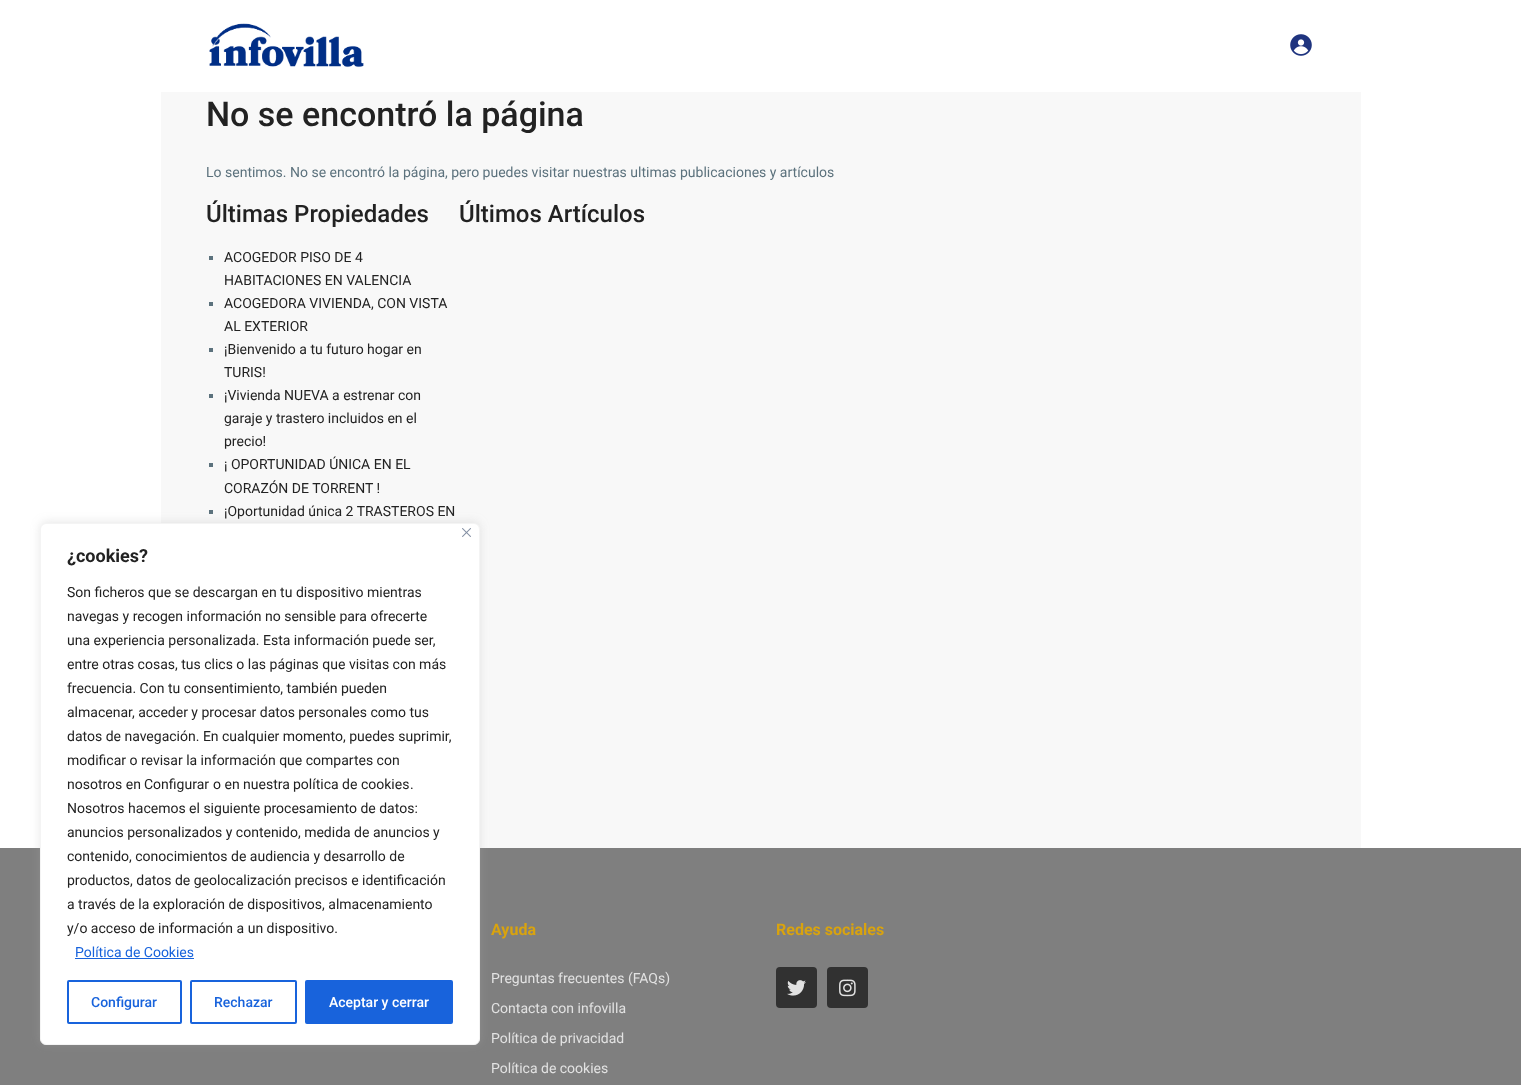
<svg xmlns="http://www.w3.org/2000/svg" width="1521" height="1085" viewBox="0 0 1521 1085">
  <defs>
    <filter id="blur1" x="-50%" y="-200%" width="200%" height="500%"><feGaussianBlur stdDeviation="5"/></filter>
  </defs>
  <rect width="100%" height="100%" fill="#ffffff"/>
  <image x="209" y="23" width="155" height="45" href="img1.png"/>
  <image x="1290" y="34" width="22" height="22" href="img2.png"/>
  <rect x="161" y="92" width="1200" height="756" fill="#f8f8f8"/>
  <text x="206" y="126" font-family="Roboto" font-size="34" font-weight="500" fill="#222222">No se encontró la página</text>
  <text x="206" y="177" font-family="Roboto" font-size="14" fill="#5c727d">Lo sentimos. No se encontró la página, pero puedes visitar nuestras ultimas publicaciones y artículos</text>
  <text x="206" y="222" font-family="Roboto" font-size="24" font-weight="500" fill="#222222">Últimas Propiedades</text>
  <rect x="209" y="256" width="4" height="4" fill="#5c727d"/>
  <text x="224" y="262" font-family="Roboto" font-size="14" fill="#222222">ACOGEDOR PISO DE 4</text>
  <text x="224" y="285" font-family="Roboto" font-size="14" fill="#222222">HABITACIONES EN VALENCIA</text>
  <rect x="209" y="302" width="4" height="4" fill="#5c727d"/>
  <text x="224" y="308" font-family="Roboto" font-size="14" fill="#222222">ACOGEDORA VIVIENDA, CON VISTA</text>
  <text x="224" y="331" font-family="Roboto" font-size="14" fill="#222222">AL EXTERIOR</text>
  <rect x="209" y="348" width="4" height="4" fill="#5c727d"/>
  <text x="224" y="354" font-family="Roboto" font-size="14" fill="#222222">¡Bienvenido a tu futuro hogar en</text>
  <text x="224" y="377" font-family="Roboto" font-size="14" fill="#222222">TURIS!</text>
  <rect x="209" y="394" width="4" height="4" fill="#5c727d"/>
  <text x="224" y="400" font-family="Roboto" font-size="14" fill="#222222">¡Vivienda NUEVA a estrenar con</text>
  <text x="224" y="423" font-family="Roboto" font-size="14" fill="#222222">garaje y trastero incluidos en el</text>
  <text x="224" y="446" font-family="Roboto" font-size="14" fill="#222222">precio!</text>
  <rect x="209" y="463" width="4" height="4" fill="#5c727d"/>
  <text x="224" y="469" font-family="Roboto" font-size="14" fill="#222222">¡ OPORTUNIDAD ÚNICA EN EL</text>
  <text x="224" y="493" font-family="Roboto" font-size="14" fill="#222222">CORAZÓN DE TORRENT !</text>
  <rect x="209" y="510" width="4" height="4" fill="#5c727d"/>
  <text x="224" y="516" font-family="Roboto" font-size="14" fill="#222222">¡Oportunidad única 2 TRASTEROS EN</text>
  <text x="459" y="222" font-family="Roboto" font-size="24" font-weight="500" fill="#222222">Últimos Artículos</text>
  <rect x="0" y="848" width="1521" height="237" fill="#7f7f7f"/>
  <text x="491" y="935" font-family="Roboto" font-size="16" font-weight="bold" fill="#d9a30e">Ayuda</text>
  <text x="491" y="983" font-family="Roboto" font-size="14" fill="#e2e2e2">Preguntas frecuentes (FAQs)</text>
  <text x="491" y="1013" font-family="Roboto" font-size="14" fill="#e2e2e2">Contacta con infovilla</text>
  <text x="491" y="1043" font-family="Roboto" font-size="14" fill="#e2e2e2">Política de privacidad</text>
  <text x="491" y="1073" font-family="Roboto" font-size="14" fill="#e2e2e2">Política de cookies</text>
  <text x="776" y="935" font-family="Roboto" font-size="16" font-weight="bold" fill="#d9a30e">Redes sociales</text>
  <rect x="776" y="967" width="41" height="41" rx="4" fill="#313131"/>
  <image x="787" y="980" width="19" height="16" href="img3.png"/>
  <rect x="827" y="967" width="41" height="41" rx="4" fill="#313131"/>
  <image x="839" y="979" width="17" height="18" href="img4.png"/>
  <rect x="40" y="522" width="440" height="522" rx="6" fill="#acabab" fill-opacity="0.3" filter="url(#blur1)"/>
  <rect x="40.5" y="523.5" width="439" height="521" rx="5.5" fill="#ffffff" stroke="#f4f4f4"/>
  <image x="462" y="528" width="9" height="9" href="img5.png"/>
  <text x="67" y="562" font-family="Roboto" font-size="18" font-weight="bold" fill="#222222">¿cookies?</text>
  <text x="67" y="597" font-family="Roboto" font-size="14" fill="#222222">Son ficheros que se descargan en tu dispositivo mientras</text>
  <text x="67" y="621" font-family="Roboto" font-size="14" fill="#222222">navegas y recogen información no sensible para ofrecerte</text>
  <text x="67" y="645" font-family="Roboto" font-size="14" fill="#222222">una experiencia personalizada. Esta información puede ser,</text>
  <text x="67" y="669" font-family="Roboto" font-size="14" fill="#222222">entre otras cosas, tus clics o las páginas que visitas con más</text>
  <text x="67" y="693" font-family="Roboto" font-size="14" fill="#222222">frecuencia. Con tu consentimiento, también pueden</text>
  <text x="67" y="717" font-family="Roboto" font-size="14" fill="#222222">almacenar, acceder y procesar datos personales como tus</text>
  <text x="67" y="741" font-family="Roboto" font-size="14" fill="#222222">datos de navegación. En cualquier momento, puedes suprimir,</text>
  <text x="67" y="765" font-family="Roboto" font-size="14" fill="#222222">modificar o revisar la información que compartes con</text>
  <text x="67" y="789" font-family="Roboto" font-size="14" fill="#222222">nosotros en</text>
  <text x="144" y="789" font-family="Roboto" font-size="14" fill="#222222">Configurar</text>
  <text x="213" y="789" font-family="Roboto" font-size="14" fill="#222222">o en nuestra</text>
  <text x="293" y="789" font-family="Roboto" font-size="14" fill="#222222">política de cookies</text>
  <text x="410" y="789" font-family="Roboto" font-size="14" fill="#222222">.</text>
  <text x="67" y="813" font-family="Roboto" font-size="14" fill="#222222">Nosotros hacemos el siguiente procesamiento de datos:</text>
  <text x="67" y="837" font-family="Roboto" font-size="14" fill="#222222">anuncios personalizados y contenido, medida de anuncios y</text>
  <text x="67" y="861" font-family="Roboto" font-size="14" fill="#222222">contenido, conocimientos de audiencia y desarrollo de</text>
  <text x="67" y="885" font-family="Roboto" font-size="14" fill="#222222">productos, datos de geolocalización precisos e identificación</text>
  <text x="67" y="909" font-family="Roboto" font-size="14" fill="#222222">a través de la exploración de dispositivos, almacenamiento</text>
  <text x="67" y="933" font-family="Roboto" font-size="14" fill="#222222">y/o acceso de información a un dispositivo.</text>
  <text x="75" y="957" font-family="Roboto" font-size="14" fill="#1863dc">Política de Cookies</text>
  <rect x="75" y="958" width="119" height="1" fill="#1863dc"/>
  <rect x="68" y="981" width="113" height="42" rx="1" fill="none" stroke="#1863dc" stroke-width="2"/>
  <text x="91" y="1007" font-family="Roboto" font-size="14" font-weight="500" fill="#1863dc">Configurar</text>
  <rect x="191" y="981" width="105" height="42" rx="1" fill="none" stroke="#1863dc" stroke-width="2"/>
  <text x="214" y="1007" font-family="Roboto" font-size="14" font-weight="500" fill="#1863dc">Rechazar</text>
  <rect x="306" y="981" width="146" height="42" rx="1" fill="#1863dc" stroke="#1863dc" stroke-width="2"/>
  <text x="329" y="1007" font-family="Roboto" font-size="14" font-weight="500" fill="#ffffff">Aceptar y cerrar</text>
</svg>
